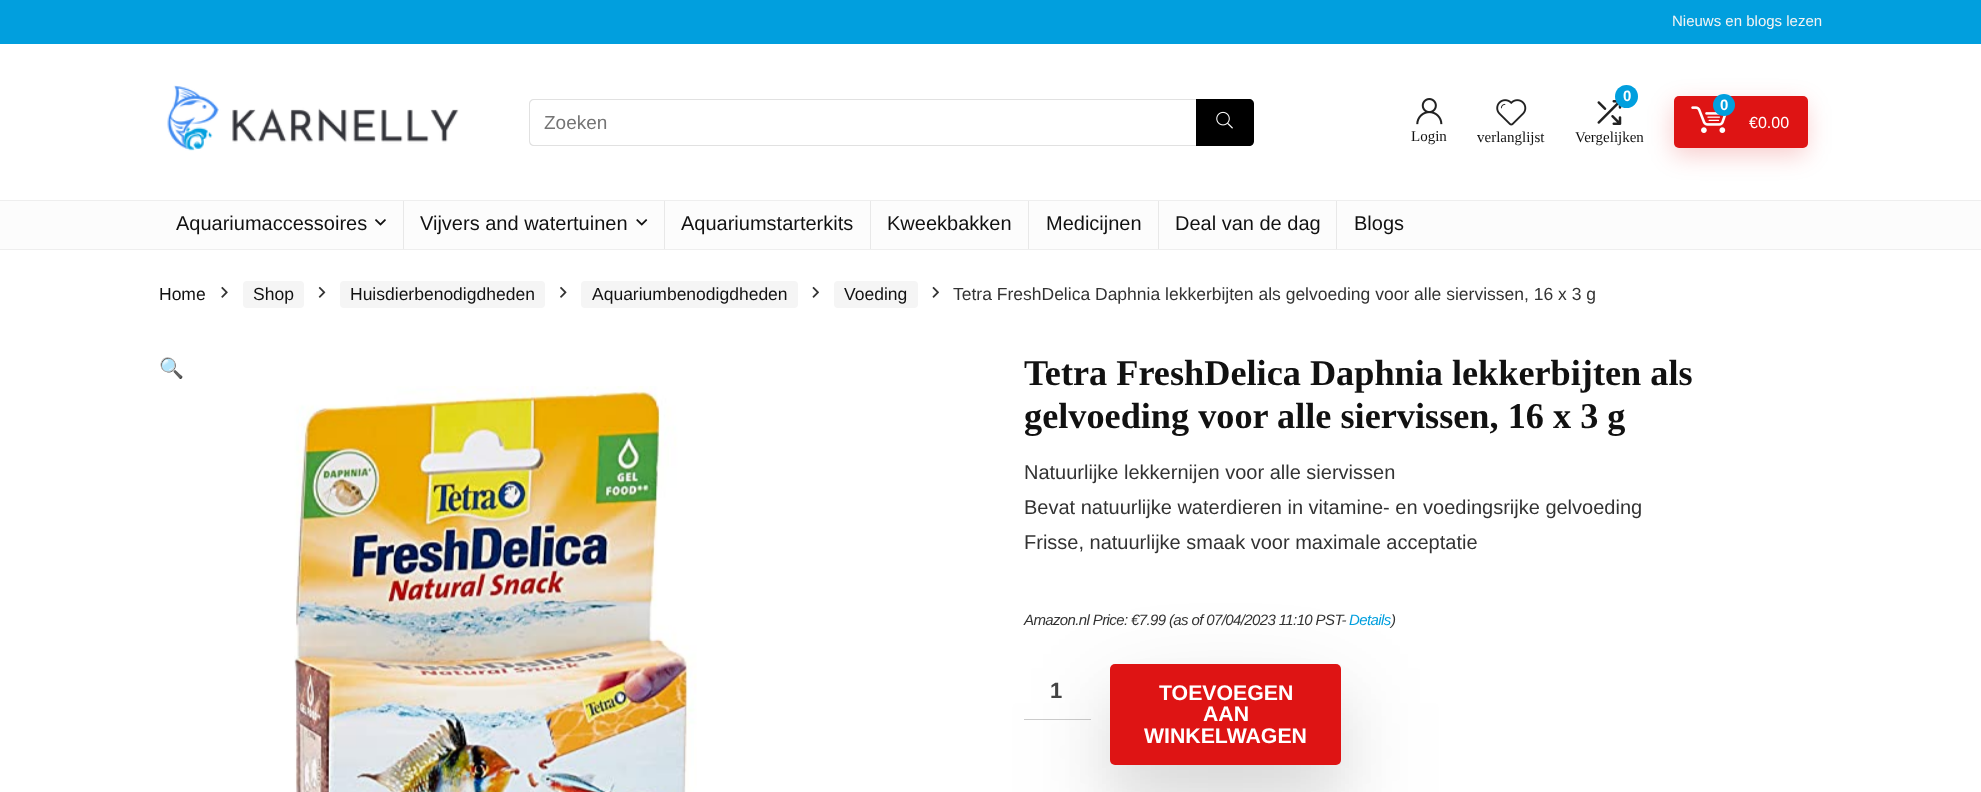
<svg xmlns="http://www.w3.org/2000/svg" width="1981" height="792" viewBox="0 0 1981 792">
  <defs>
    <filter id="blur1" x="-50%" y="-200%" width="200%" height="500%"><feGaussianBlur stdDeviation="12"/></filter>
    <clipPath id="clip1"><rect x="160" y="351" width="798" height="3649"/></clipPath>
    <filter id="blur2" x="-50%" y="-200%" width="200%" height="500%"><feGaussianBlur stdDeviation="50"/></filter>
    <filter id="blur3" x="-50%" y="-200%" width="200%" height="500%"><feGaussianBlur stdDeviation="24"/></filter>
  </defs>
  <rect width="100%" height="100%" fill="#ffffff"/>
  <rect x="0" y="0" width="1981" height="44" fill="#019fde"/>
  <text x="1672" y="26" font-family="Liberation Sans" font-size="15" fill="#f4f4f4">Nieuws en blogs lezen</text>
  <image x="167" y="85" width="292" height="66" href="img1.png"/>
  <path d="M534 99H1196V146H534C531 146 529 144 529 141V104C529 101 531 99 534 99ZM534 100H1196V145H534C532 145 530 143 530 141V104C530 102 532 100 534 100Z" fill="#e1e1e1" fill-rule="evenodd"/>
  <text x="544" y="129" font-family="Liberation Sans" font-size="19" fill="#757575">Zoeken</text>
  <path d="M1196 99H1249C1252 99 1254 101 1254 104V141C1254 144 1252 146 1249 146H1196Z" fill="#000000"/>
  <image x="1216" y="111" width="17" height="18" href="img2.png"/>
  <image x="1597" y="100" width="25" height="25" href="img3.png"/>
  <rect x="1673" y="104" width="133" height="51" rx="5" fill="#de1414" fill-opacity="0.2" filter="url(#blur1)"/>
  <circle cx="1626.5" cy="96.5" r="11.5" fill="#019fde"/>
  <text x="1623" y="101" font-family="Liberation Sans" font-size="15" font-weight="bold" fill="#ffffff">0</text>
  <text x="1575" y="142" font-family="Liberation Serif" font-size="15" fill="#111111">Vergelijken</text>
  <rect x="1674" y="96" width="134" height="52" rx="5" fill="#de1414"/>
  <image x="1691" y="106" width="36" height="27" href="img4.png"/>
  <circle cx="1724" cy="105" r="11" fill="#019fde"/>
  <text x="1720" y="110" font-family="Liberation Sans" font-size="15" font-weight="bold" fill="#ffffff">0</text>
  <text x="1749" y="128" font-family="Liberation Sans" font-size="16" fill="#ffffff">€0.00</text>
  <image x="1416" y="98" width="27" height="27" href="img5.png"/>
  <text x="1411" y="141" font-family="Liberation Serif" font-size="15" fill="#111111">Login</text>
  <image x="1496" y="99" width="31" height="27" href="img6.png"/>
  <text x="1477" y="142" font-family="Liberation Serif" font-size="15" fill="#111111">verlanglijst</text>
  <rect x="0" y="201" width="1981" height="48" fill="#fcfcfc"/>
  <rect x="0" y="200" width="1981" height="1" fill="#eeeeee"/>
  <rect x="0" y="249" width="1981" height="1" fill="#eeeeee"/>
  <rect x="403" y="201" width="1" height="48" fill="#e8e8e8"/>
  <text x="176" y="230" font-family="Liberation Sans" font-size="20" fill="#111111">Aquariumaccessoires</text>
  <image x="375" y="219" width="11" height="7" href="img7.png"/>
  <rect x="664" y="201" width="1" height="48" fill="#e8e8e8"/>
  <text x="420" y="230" font-family="Liberation Sans" font-size="20" fill="#111111">Vijvers and watertuinen</text>
  <image x="636" y="219" width="12" height="7" href="img8.png"/>
  <rect x="870" y="201" width="1" height="48" fill="#e8e8e8"/>
  <text x="681" y="230" font-family="Liberation Sans" font-size="20" fill="#111111">Aquariumstarterkits</text>
  <rect x="1028" y="201" width="1" height="48" fill="#e8e8e8"/>
  <text x="887" y="230" font-family="Liberation Sans" font-size="20" fill="#111111">Kweekbakken</text>
  <rect x="1158" y="201" width="1" height="48" fill="#e8e8e8"/>
  <text x="1046" y="230" font-family="Liberation Sans" font-size="20" fill="#111111">Medicijnen</text>
  <rect x="1336" y="201" width="1" height="48" fill="#e8e8e8"/>
  <text x="1175" y="230" font-family="Liberation Sans" font-size="20" fill="#111111">Deal van de dag</text>
  <text x="1354" y="230" font-family="Liberation Sans" font-size="20" fill="#111111">Blogs</text>
  <text x="159" y="300" font-family="Liberation Sans" font-size="17.5" fill="#111111">Home</text>
  <image x="221" y="286" width="7" height="12" href="img9.png"/>
  <rect x="243" y="281" width="61" height="27" rx="4" fill="#f5f5f5"/>
  <text x="253" y="300" font-family="Liberation Sans" font-size="17.5" fill="#111111">Shop</text>
  <image x="318" y="286" width="8" height="12" href="img10.png"/>
  <rect x="340" y="281" width="205" height="27" rx="4" fill="#f5f5f5"/>
  <text x="350" y="300" font-family="Liberation Sans" font-size="17.5" fill="#111111">Huisdierbenodigdheden</text>
  <image x="560" y="286" width="7" height="12" href="img11.png"/>
  <rect x="581" y="281" width="217" height="27" rx="4" fill="#f5f5f5"/>
  <text x="592" y="300" font-family="Liberation Sans" font-size="17.5" fill="#111111">Aquariumbenodigdheden</text>
  <image x="812" y="286" width="7" height="12" href="img12.png"/>
  <rect x="834" y="281" width="84" height="27" rx="4" fill="#f5f5f5"/>
  <text x="844" y="300" font-family="Liberation Sans" font-size="17.5" fill="#111111">Voeding</text>
  <image x="932" y="286" width="7" height="12" href="img12.png"/>
  <text x="953" y="300" font-family="Liberation Sans" font-size="17.5" fill="#333333">Tetra FreshDelica Daphnia lekkerbijten als gelvoeding voor alle siervissen, 16 x 3 g</text>
  <g clip-path="url(#clip1)">
    <text x="159" y="375" font-family="Noto Color Emoji" font-size="20" fill="#019fde">🔍</text>
  </g>
  <image x="294" y="386" width="403" height="406" href="img13.png"/>
  <text x="1024" y="385" font-family="Liberation Serif" font-size="36.25" font-weight="bold" fill="#111111">Tetra FreshDelica Daphnia lekkerbijten als</text>
  <text x="1024" y="428" font-family="Liberation Serif" font-size="36.25" font-weight="bold" fill="#111111">gelvoeding voor alle siervissen, 16 x 3 g</text>
  <text x="1024" y="479" font-family="Liberation Sans" font-size="20" fill="#333333">Natuurlijke lekkernijen voor alle siervissen</text>
  <text x="1024" y="514" font-family="Liberation Sans" font-size="20" fill="#333333">Bevat natuurlijke waterdieren in vitamine- en voedingsrijke gelvoeding</text>
  <text x="1024" y="549" font-family="Liberation Sans" font-size="20" fill="#333333">Frisse, natuurlijke smaak voor maximale acceptatie</text>
  <text x="1024" y="625" font-family="Liberation Sans" font-size="15" font-style="italic" letter-spacing="-0.62" fill="#333333">Amazon.nl Price: €7.99 (as of 07/04/2023 11:10 PST-</text>
  <text x="1349" y="625" font-family="Liberation Sans" font-size="15" font-style="italic" letter-spacing="-0.62" fill="#019fde">Details</text>
  <text x="1391" y="625" font-family="Liberation Sans" font-size="15" font-style="italic" letter-spacing="-0.62" fill="#333333">)</text>
  <rect x="1024" y="719" width="67" height="1" fill="#cccccc"/>
  <text x="1050" y="698" font-family="Liberation Sans" font-size="22" font-weight="bold" fill="#444444">1</text>
  <rect x="1110" y="701" width="231" height="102" rx="5" fill="#000000" fill-opacity="0.12" filter="url(#blur2)"/>
  <rect x="1110" y="699" width="231" height="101" rx="5" fill="#000000" fill-opacity="0.06" filter="url(#blur3)"/>
  <rect x="1110" y="664" width="231" height="101" rx="5" fill="#de1414"/>
  <text x="1159" y="700" font-family="Liberation Sans" font-size="21.25" font-weight="bold" fill="#ffffff">TOEVOEGEN</text>
  <text x="1203" y="721" font-family="Liberation Sans" font-size="21.25" font-weight="bold" fill="#ffffff">AAN</text>
  <text x="1144" y="743" font-family="Liberation Sans" font-size="21.25" font-weight="bold" fill="#ffffff">WINKELWAGEN</text>
</svg>
